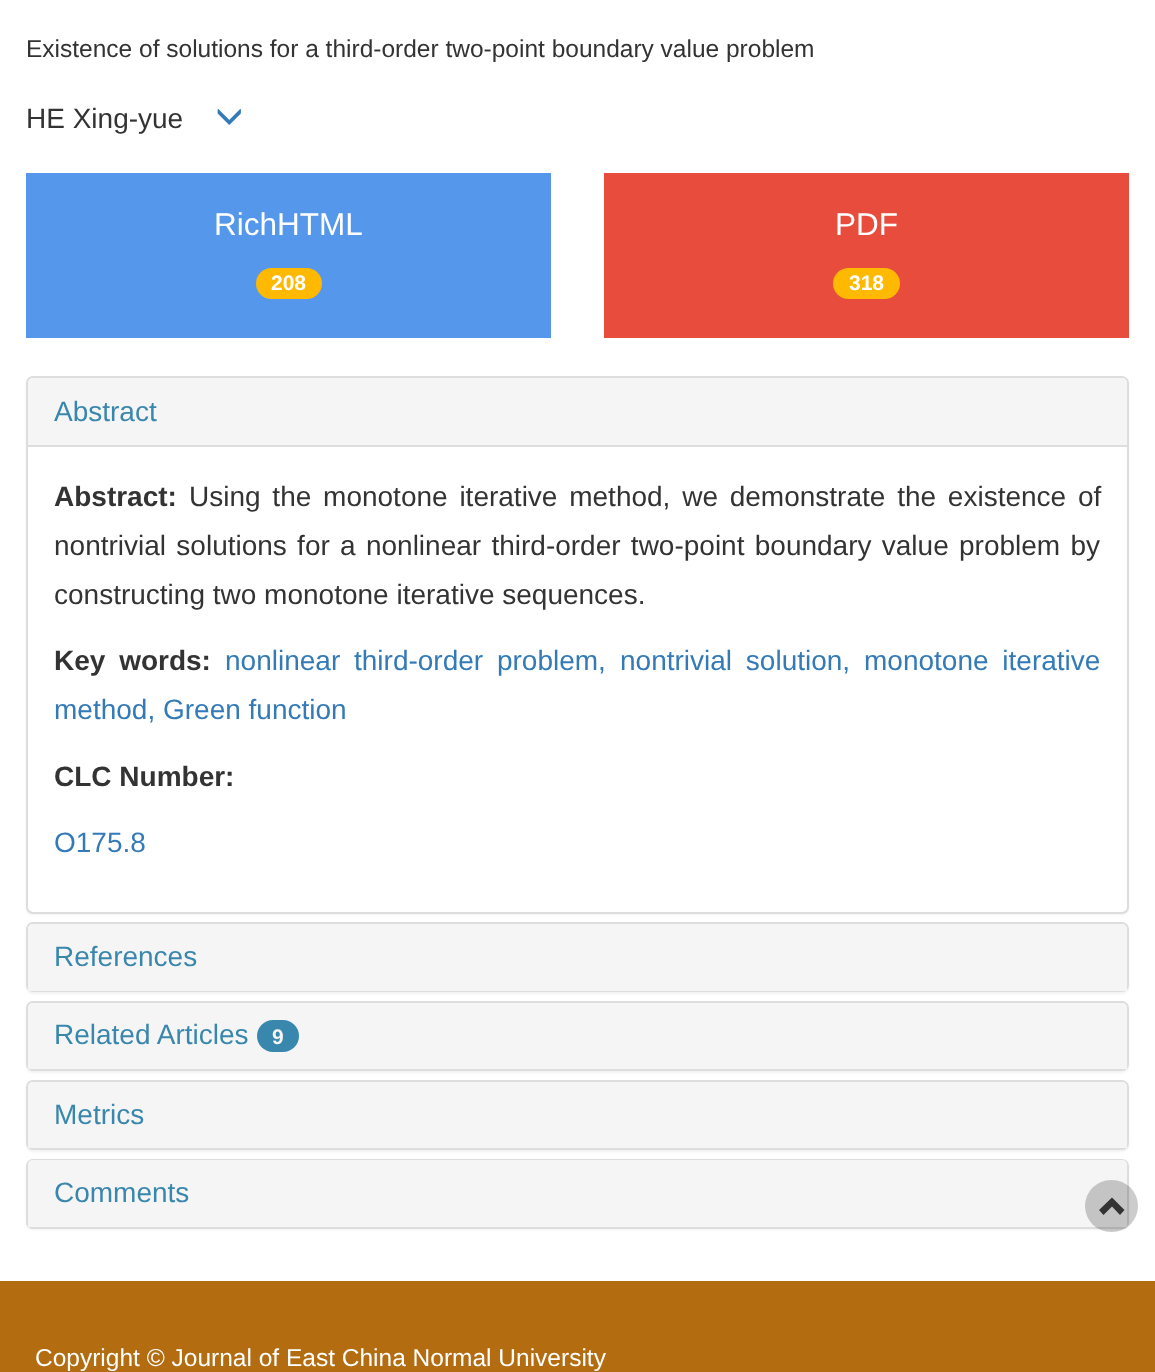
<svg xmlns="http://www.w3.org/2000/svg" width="1155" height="1372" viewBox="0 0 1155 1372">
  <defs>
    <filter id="blur1" x="-50%" y="-200%" width="200%" height="500%"><feGaussianBlur stdDeviation="1"/></filter>
  </defs>
  <rect width="100%" height="100%" fill="#ffffff"/>
  <text x="26" y="57" font-family="Liberation Sans" font-size="24.5" fill="#333333">Existence of solutions for a third-order two-point boundary value problem</text>
  <text x="26" y="128" font-family="Liberation Sans" font-size="28" fill="#333333">HE Xing-yue</text>
  <image x="217" y="108" width="24" height="17" href="img1.png"/>
  <rect x="26" y="173" width="525" height="165" fill="#5497eb"/>
  <text x="214" y="235" font-family="Liberation Sans" font-size="31.5" fill="#ffffff">RichHTML</text>
  <rect x="256" y="268" width="66" height="31" rx="15.5" fill="#ffb900"/>
  <text x="271" y="290" font-family="Liberation Sans" font-size="21" font-weight="bold" fill="#ffffff">208</text>
  <rect x="604" y="173" width="525" height="165" fill="#e74c3c"/>
  <text x="835" y="235" font-family="Liberation Sans" font-size="31.5" fill="#ffffff">PDF</text>
  <rect x="833" y="268" width="67" height="31" rx="15.5" fill="#ffb900"/>
  <text x="849" y="290" font-family="Liberation Sans" font-size="21" font-weight="bold" fill="#ffffff">318</text>
  <rect x="26" y="378" width="1103" height="537" rx="7" fill="#000000" fill-opacity="0.05" filter="url(#blur1)"/>
  <rect x="27" y="377" width="1101" height="536" rx="6" fill="#ffffff" stroke="#dddddd" stroke-width="2"/>
  <path d="M33 378H1122C1125 378 1127 380 1127 383V445H28V383C28 380 30 378 33 378Z" fill="#f5f5f5"/>
  <text x="54" y="421" font-family="Liberation Sans" font-size="28" fill="#3a87ad">Abstract</text>
  <rect x="28" y="445" width="1099" height="2" fill="#dddddd"/>
  <text x="54" y="506" font-family="Liberation Sans" font-size="28" font-weight="bold" fill="#333333">Abstract:</text>
  <text x="189" y="506" word-spacing="4" font-family="Liberation Sans" font-size="28" fill="#333333">Using the monotone iterative method, we demonstrate the existence of</text>
  <text x="54" y="555" word-spacing="2.5" font-family="Liberation Sans" font-size="28" fill="#333333">nontrivial solutions for a nonlinear third-order two-point boundary value problem by</text>
  <text x="54" y="604" font-family="Liberation Sans" font-size="28" fill="#333333">constructing two monotone iterative sequences.</text>
  <text x="54" y="670" word-spacing="6" font-family="Liberation Sans" font-size="28" font-weight="bold" fill="#333333">Key words:</text>
  <text x="225" y="670" word-spacing="6" font-family="Liberation Sans" font-size="28" fill="#337ab7">nonlinear third-order problem,</text>
  <text x="620" y="670" word-spacing="6" font-family="Liberation Sans" font-size="28" fill="#337ab7">nontrivial solution,</text>
  <text x="864" y="670" word-spacing="6" font-family="Liberation Sans" font-size="28" fill="#337ab7">monotone iterative</text>
  <text x="54" y="719" font-family="Liberation Sans" font-size="28" fill="#337ab7">method, Green function</text>
  <text x="54" y="786" font-family="Liberation Sans" font-size="28" font-weight="bold" fill="#333333">CLC Number:</text>
  <text x="54" y="852" font-family="Liberation Sans" font-size="28" fill="#337ab7">O175.8</text>
  <rect x="26" y="924" width="1103" height="70" rx="7" fill="#000000" fill-opacity="0.05" filter="url(#blur1)"/>
  <rect x="27" y="923" width="1101" height="68" rx="6" fill="none" stroke="#dddddd" stroke-width="2"/>
  <path d="M33 924H1122C1125 924 1127 926 1127 929V991H28V929C28 926 30 924 33 924Z" fill="#f5f5f5"/>
  <text x="54" y="966" font-family="Liberation Sans" font-size="28" fill="#3a87ad">References</text>
  <rect x="26" y="1003" width="1103" height="70" rx="7" fill="#000000" fill-opacity="0.05" filter="url(#blur1)"/>
  <rect x="27" y="1002" width="1101" height="68" rx="6" fill="none" stroke="#dddddd" stroke-width="2"/>
  <path d="M33 1003H1122C1125 1003 1127 1005 1127 1008V1069H28V1008C28 1005 30 1003 33 1003Z" fill="#f5f5f5"/>
  <text x="54" y="1044" font-family="Liberation Sans" font-size="28" fill="#3a87ad">Related Articles</text>
  <rect x="257" y="1020" width="42" height="32" rx="16" fill="#3a87ad"/>
  <text x="272" y="1044" font-family="Liberation Sans" font-size="21" font-weight="bold" fill="#f5f5f5">9</text>
  <rect x="26" y="1082" width="1103" height="70" rx="7" fill="#000000" fill-opacity="0.05" filter="url(#blur1)"/>
  <rect x="27" y="1081" width="1101" height="68" rx="6" fill="none" stroke="#dddddd" stroke-width="2"/>
  <path d="M33 1082H1122C1125 1082 1127 1084 1127 1087V1148H28V1087C28 1084 30 1082 33 1082Z" fill="#f5f5f5"/>
  <text x="54" y="1124" font-family="Liberation Sans" font-size="28" fill="#3a87ad">Metrics</text>
  <rect x="26" y="1160" width="1103" height="70" rx="7" fill="#000000" fill-opacity="0.05" filter="url(#blur1)"/>
  <rect x="27" y="1160" width="1101" height="68" rx="6" fill="none" stroke="#dddddd" stroke-width="2"/>
  <path d="M33 1160H1122C1125 1160 1127 1162 1127 1165V1227H28V1165C28 1162 30 1160 33 1160Z" fill="#f5f5f5"/>
  <text x="54" y="1202" font-family="Liberation Sans" font-size="28" fill="#3a87ad">Comments</text>
  <rect x="1085" y="1180" width="53" height="52" rx="26" fill="#000000" fill-opacity="0.2"/>
  <path d="M1124.5 1210L1120 1215L1112 1206.5L1103.5 1215L1099 1210L1112 1197.5Z" fill="#333333"/>
  <rect x="0" y="1281" width="1155" height="91" fill="#b36c0f"/>
  <text x="35" y="1366" font-family="Liberation Sans" font-size="24.5" fill="#ffffff">Copyright © Journal of East China Normal University</text>
</svg>
